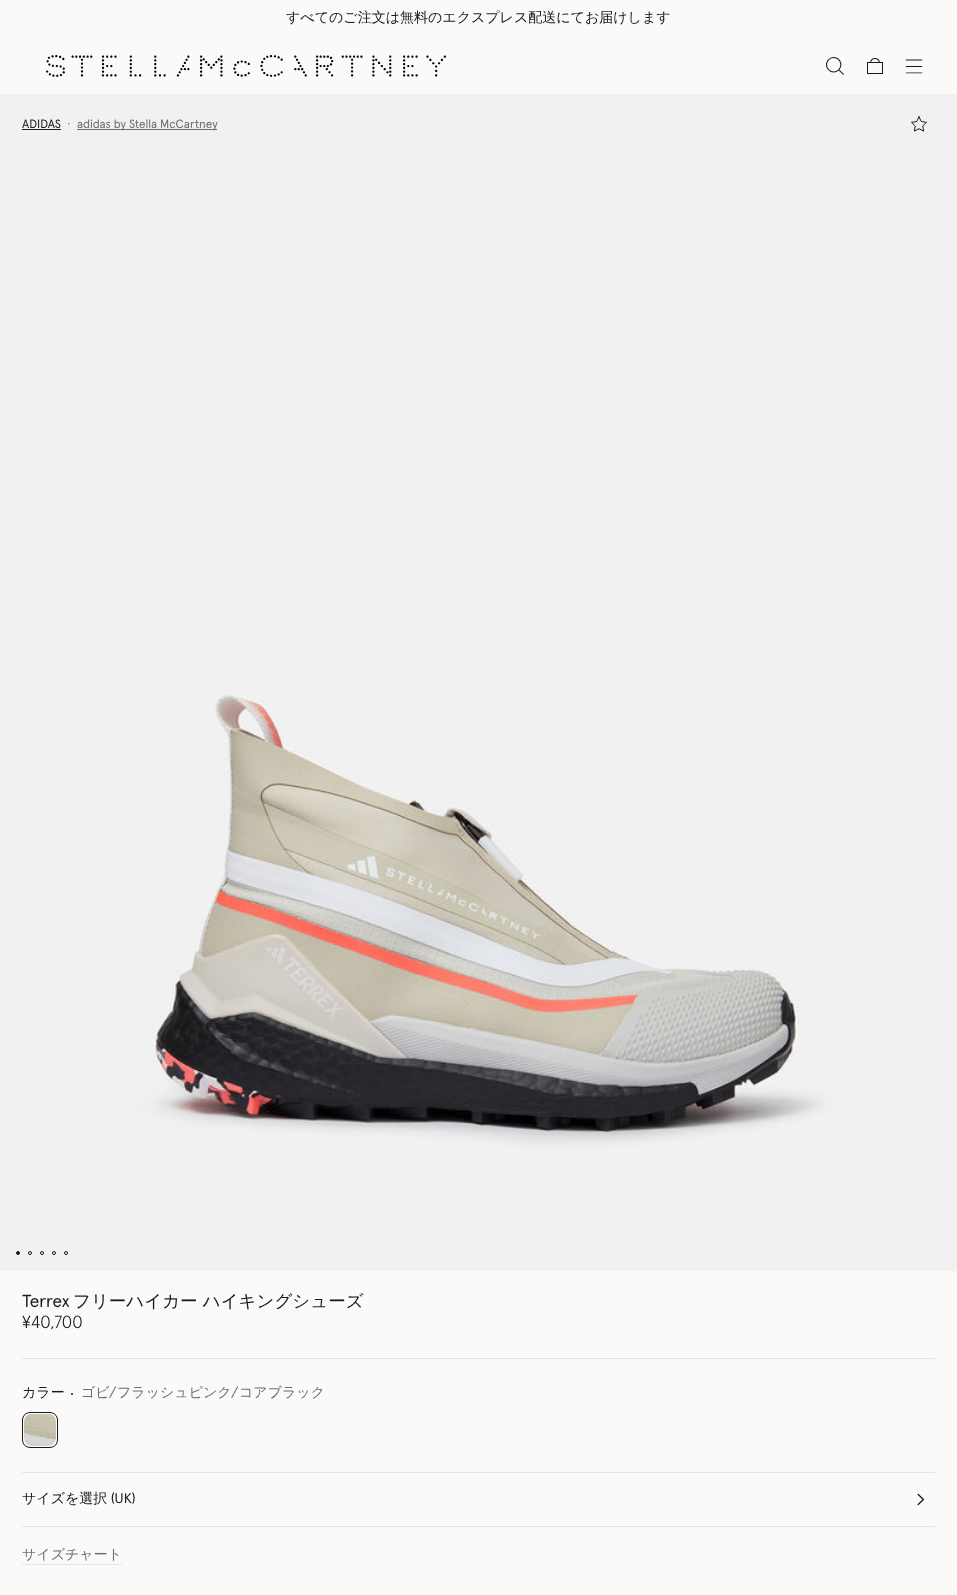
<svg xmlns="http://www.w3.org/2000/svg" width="957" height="1595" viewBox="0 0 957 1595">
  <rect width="100%" height="100%" fill="#fbfaf9"/>
  <text x="286" y="22" font-family="WenQuanYi Zen Hei" font-size="14" font-weight="500" fill="#1a1a1a">すべてのご注文は無料のエクスプレス配送にてお届けします</text>
  <image x="46" y="55" width="400" height="22" href="img1.png"/>
  <image x="826" y="57" width="18" height="18" href="img2.png"/>
  <image x="867" y="58" width="16" height="16" href="img3.png"/>
  <image x="905" y="59" width="18" height="15" href="img4.png"/>
  <image x="0" y="94" width="957" height="1177" href="img6.png"/>
  <text x="22" y="128" font-family="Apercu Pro" font-size="12" fill="#1a1a1a">ADIDAS</text>
  <rect x="22" y="129" width="39" height="1" fill="#1a1a1a"/>
  <text x="67" y="128" font-family="Apercu Pro" font-size="12" fill="#6e6e6e">·</text>
  <rect x="77" y="129" width="140" height="1" fill="#6e6e6e"/>
  <text x="77" y="128" font-family="Apercu Pro" font-size="12" fill="#6e6e6e">adidas by Stella McCartney</text>
  <image x="911" y="116" width="16" height="16" href="img5.png"/>
  <circle cx="18" cy="1253" r="1.5" fill="#1a1a1a" stroke="#1a1a1a"/>
  <circle cx="30" cy="1253" r="1.5" fill="none" stroke="#1a1a1a"/>
  <circle cx="42" cy="1253" r="1.5" fill="none" stroke="#1a1a1a"/>
  <circle cx="54" cy="1253" r="1.5" fill="none" stroke="#1a1a1a"/>
  <circle cx="66" cy="1253" r="1.5" fill="none" stroke="#1a1a1a"/>
  <text x="22" y="1307" font-family="Apercu Pro" font-size="17.5" fill="#1a1a1a">Terrex</text>
  <text x="73" y="1307" font-family="WenQuanYi Zen Hei" font-size="17.5" font-weight="500" fill="#1a1a1a">フリーハイカー ハイキングシューズ</text>
  <rect x="22" y="1358" width="913" height="1" fill="#e5e5e5"/>
  <text x="22" y="1328" font-family="Apercu Pro" font-size="17.5" font-weight="300" fill="#1a1a1a">¥40,700</text>
  <text x="22" y="1397" font-family="WenQuanYi Zen Hei" font-size="14" font-weight="500" fill="#1a1a1a">カラー</text>
  <circle cx="72" cy="1394" r="1" fill="#1a1a1a"/>
  <text x="81" y="1397" font-family="WenQuanYi Zen Hei" font-size="14" font-weight="500" fill="#6e6e6e">ゴビ</text>
  <text x="109" y="1397" font-family="Apercu Pro" font-size="14" fill="#6e6e6e">/</text>
  <text x="117" y="1397" font-family="WenQuanYi Zen Hei" font-size="14" font-weight="500" fill="#6e6e6e">フラッシュピンク</text>
  <text x="231" y="1397" font-family="Apercu Pro" font-size="14" fill="#6e6e6e">/</text>
  <text x="239" y="1397" font-family="WenQuanYi Zen Hei" font-size="14" font-weight="500" fill="#6e6e6e">コアブラック</text>
  <rect x="22.5" y="1412.5" width="35" height="35" rx="7.5" fill="none" stroke="#1a1a1a"/>
  <image x="24" y="1414" width="32" height="32" href="img7.png"/>
  <rect x="22" y="1472" width="913" height="1" fill="#e5e5e5"/>
  <rect x="22" y="1526" width="913" height="1" fill="#e5e5e5"/>
  <text x="22" y="1503" font-family="WenQuanYi Zen Hei" font-size="14" font-weight="500" fill="#1a1a1a">サイズを選択</text>
  <text x="111" y="1503" font-family="Apercu Pro" font-size="14" fill="#1a1a1a">(UK)</text>
  <image x="917" y="1493" width="8" height="13" href="img8.png"/>
  <text x="22" y="1559" font-family="WenQuanYi Zen Hei" font-size="14" font-weight="500" fill="#6e6e6e">サイズチャート</text>
  <rect x="22" y="1564" width="100" height="1" fill="#e5e5e5"/>
</svg>
